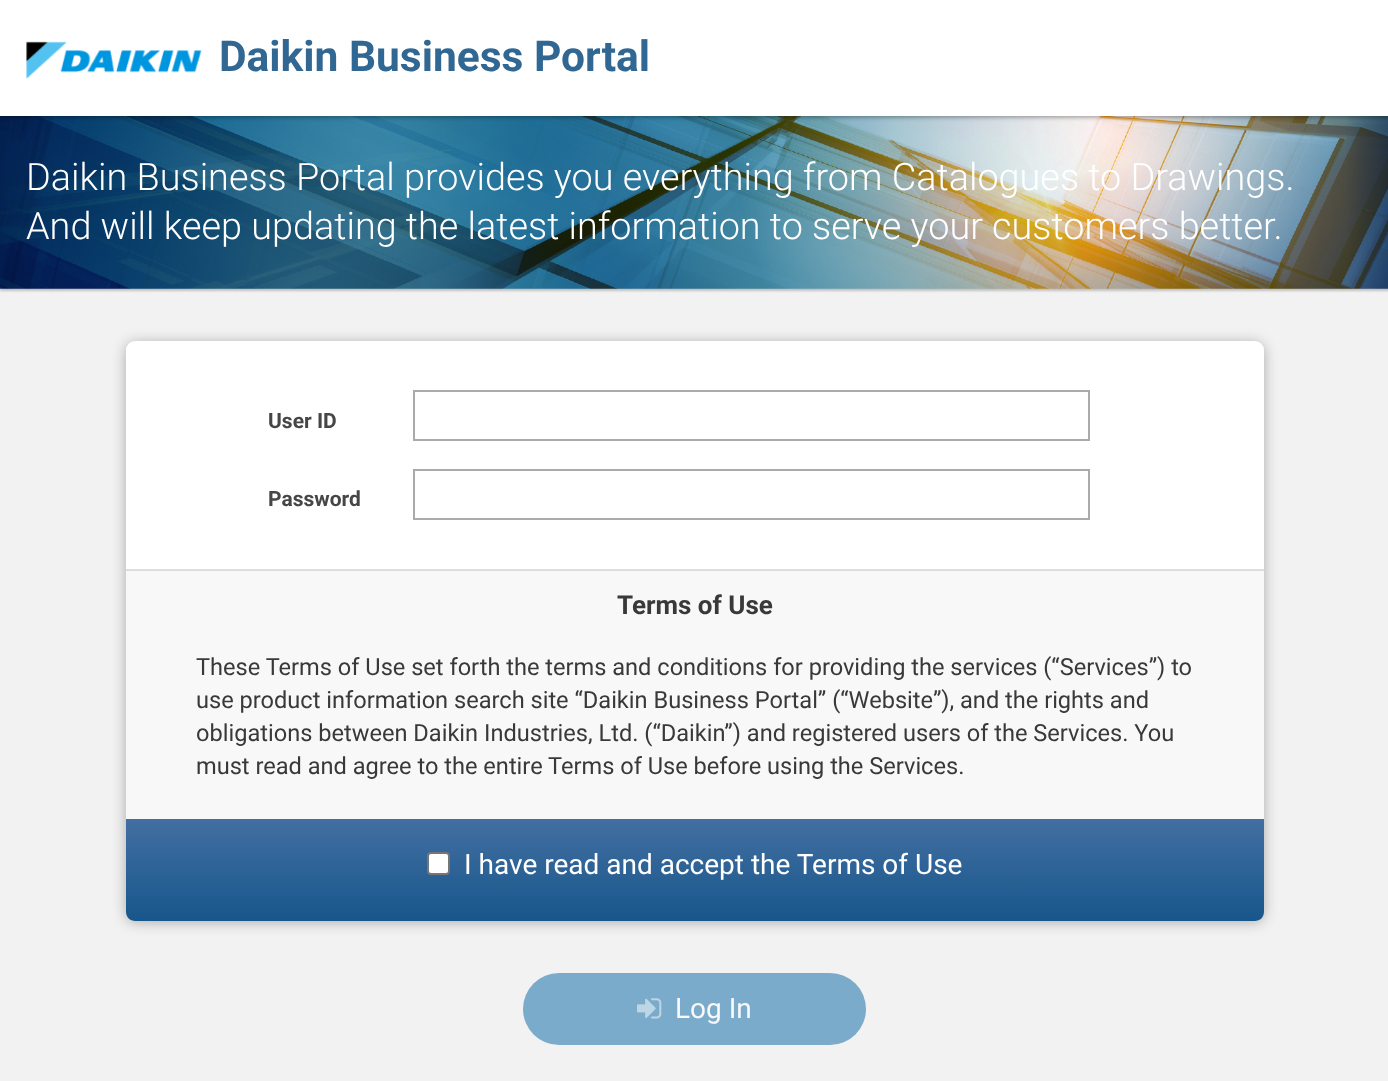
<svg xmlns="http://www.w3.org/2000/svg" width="1388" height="1081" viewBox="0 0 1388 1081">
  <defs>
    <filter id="blur1" x="-50%" y="-200%" width="200%" height="500%"><feGaussianBlur stdDeviation="1"/></filter>
    <filter id="blur2" x="-50%" y="-200%" width="200%" height="500%"><feGaussianBlur stdDeviation="2.5"/></filter>
    <filter id="blur3" x="-50%" y="-200%" width="200%" height="500%"><feGaussianBlur stdDeviation="7"/></filter>
    <linearGradient id="g1" gradientUnits="userSpaceOnUse" x1="126" y1="819" x2="126" y2="921"><stop offset="0" stop-color="#436fa1"/><stop offset="1" stop-color="#17568b"/></linearGradient>
  </defs>
  <rect width="100%" height="100%" fill="#f2f2f2"/>
  <rect x="0" y="117" width="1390" height="174" fill="#000000" fill-opacity="0.2" filter="url(#blur1)"/>
  <image x="0" y="116" width="1388" height="173" href="img2.png"/>
  <rect x="0" y="2" width="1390" height="115" fill="#000000" fill-opacity="0.4" filter="url(#blur2)"/>
  <rect x="0" y="0" width="1388" height="116" fill="#ffffff"/>
  <image x="26" y="41" width="176" height="38" href="img1.png"/>
  <text x="219" y="71" font-family="Roboto" font-size="42.5" font-weight="bold" fill="#316793">Daikin Business Portal</text>
  <text x="26" y="190" font-family="Roboto" font-size="37.8" font-weight="300" fill="#ffffff">Daikin Business Portal provides you everything from Catalogues to Drawings.</text>
  <text x="26" y="239" font-family="Roboto" font-size="37.8" font-weight="300" fill="#ffffff">And will keep updating the latest information to serve your customers better.</text>
  <rect x="126" y="343" width="1138" height="579" rx="9" fill="#000000" fill-opacity="0.3" filter="url(#blur3)"/>
  <rect x="126" y="341" width="1138" height="580" rx="9" fill="#ffffff"/>
  <text x="268" y="428" font-family="Roboto" font-size="21" font-weight="bold" fill="#464646">User ID</text>
  <rect x="414" y="391" width="675" height="49" fill="none" stroke="#aaaaaa" stroke-width="2"/>
  <text x="268" y="506" font-family="Roboto" font-size="21" font-weight="bold" fill="#464646">Password</text>
  <rect x="414" y="470" width="675" height="49" fill="none" stroke="#aaaaaa" stroke-width="2"/>
  <rect x="126" y="571" width="1138" height="248" fill="#f8f8f8"/>
  <rect x="126" y="569" width="1138" height="2" fill="#dddddd"/>
  <text x="617" y="614" font-family="Roboto" font-size="26" font-weight="bold" fill="#393939">Terms of Use</text>
  <text x="196" y="675" font-family="Roboto" font-size="23.6" fill="#393939">These Terms of Use set forth the terms and conditions for providing the services (“Services”) to</text>
  <text x="196" y="708" font-family="Roboto" font-size="23.6" fill="#393939">use product information search site “Daikin Business Portal” (“Website”), and the rights and</text>
  <text x="196" y="741" font-family="Roboto" font-size="23.6" fill="#393939">obligations between Daikin Industries, Ltd. (“Daikin”) and registered users of the Services. You</text>
  <text x="196" y="774" font-family="Roboto" font-size="23.6" fill="#393939">must read and agree to the entire Terms of Use before using the Services.</text>
  <path d="M126 819H1264V912C1264 917 1260 921 1255 921H135C130 921 126 917 126 912Z" fill="url(#g1)"/>
  <rect x="428" y="853" width="21" height="21" rx="3" fill="#ffffff" stroke="#767676" stroke-width="2"/>
  <text x="464" y="874" font-family="Roboto" font-size="28" fill="#ffffff">I have read and accept the Terms of Use</text>
  <rect x="523" y="973" width="343" height="72" rx="36" fill="#7babcb"/>
  <image x="637" y="998" width="25" height="21" href="img3.png"/>
  <text x="675" y="1018" font-family="Roboto" font-size="28" fill="#f9f9f9">Log In</text>
</svg>
